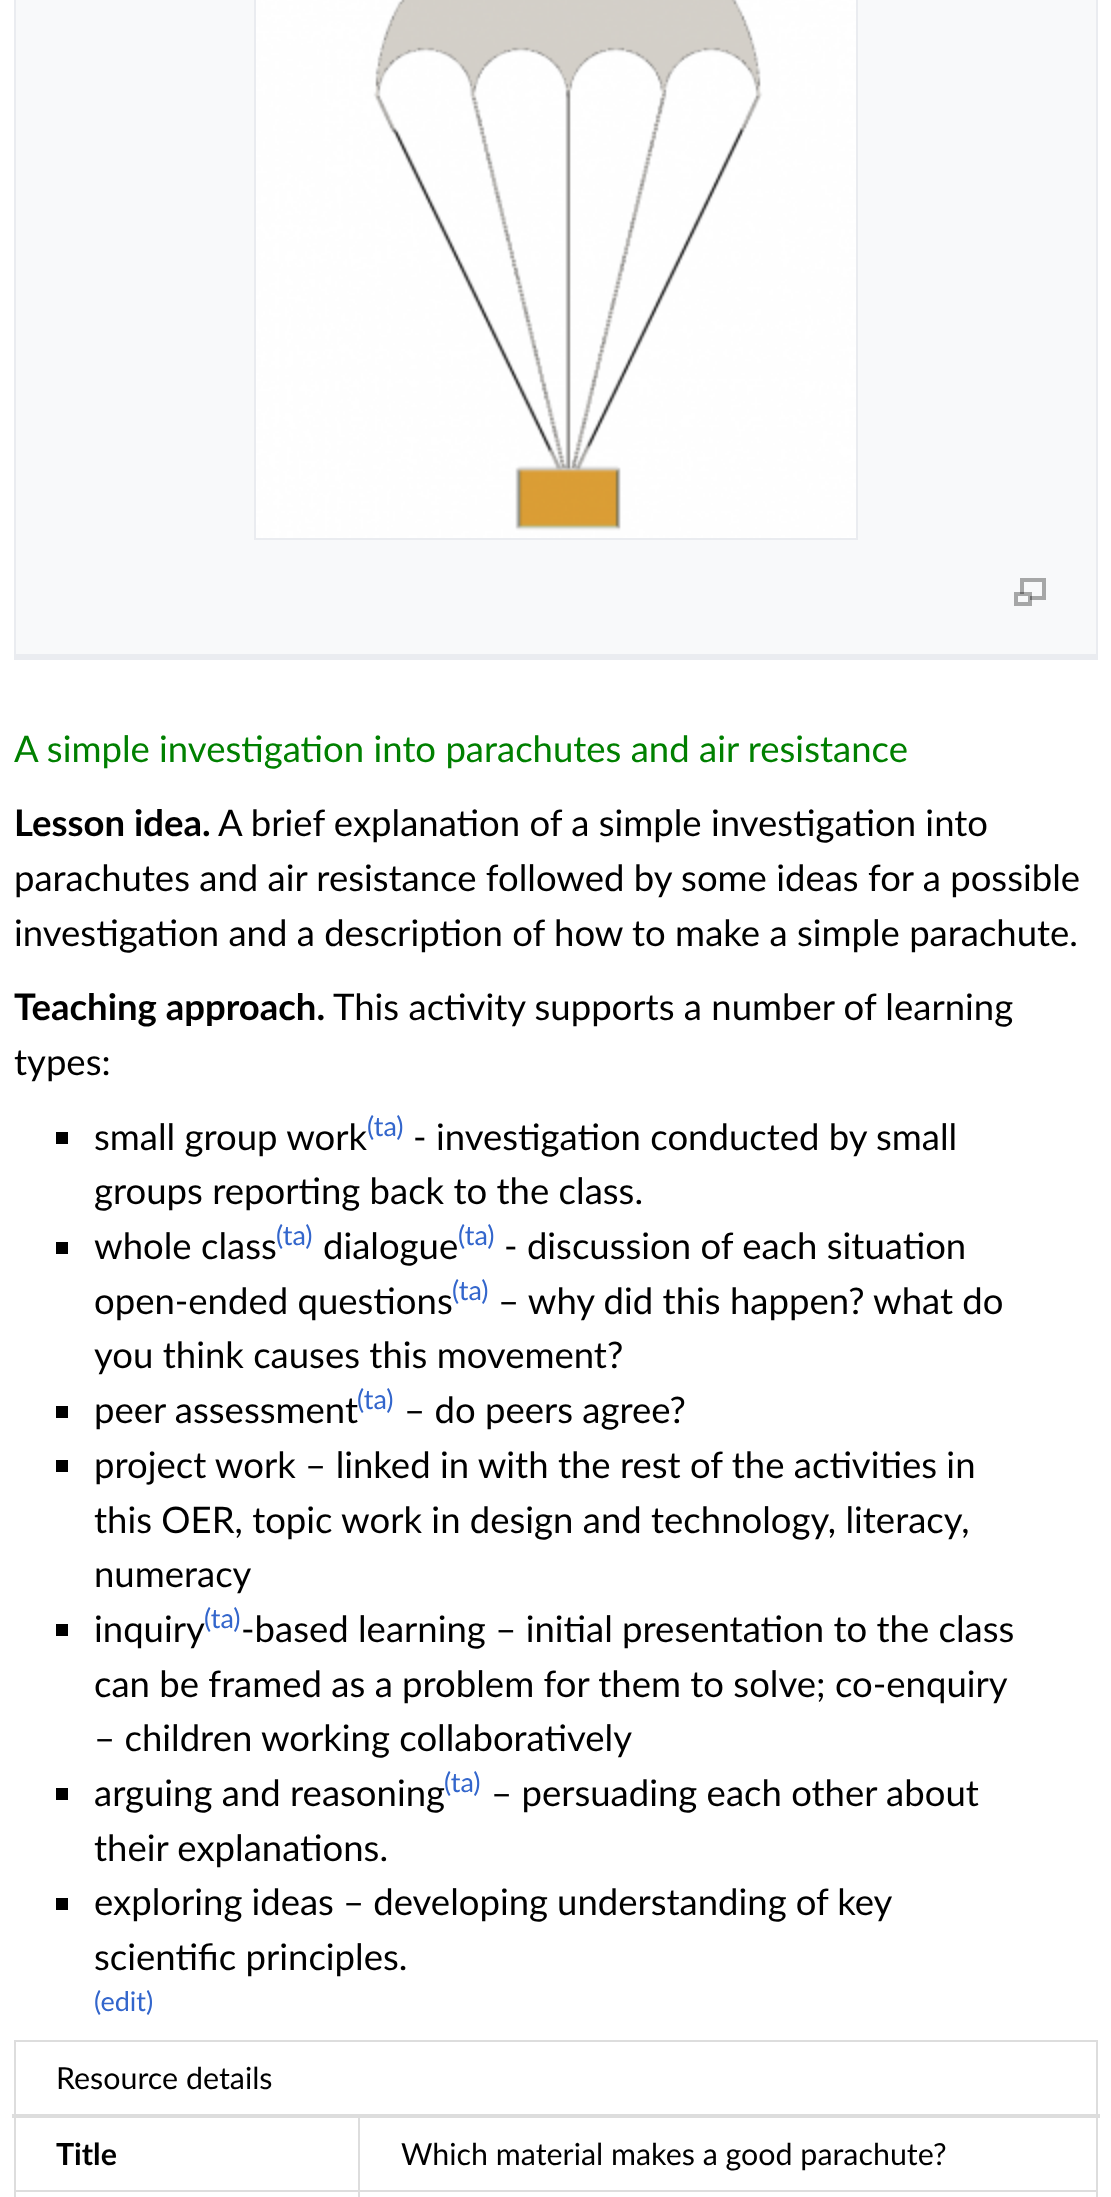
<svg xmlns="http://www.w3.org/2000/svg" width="1111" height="2197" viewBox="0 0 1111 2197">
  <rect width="100%" height="100%" fill="#ffffff"/>
  <rect x="16" y="0" width="1080" height="654" fill="#f8f9fa"/>
  <rect x="1096" y="0" width="2" height="660" fill="#eaecf0"/>
  <rect x="14" y="654" width="1084" height="6" fill="#eaecf0"/>
  <rect x="14" y="0" width="2" height="660" fill="#eaecf0"/>
  <rect x="255" y="-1" width="602" height="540" fill="none" stroke="#eaecf0" stroke-width="2"/>
  <image x="256" y="0" width="600" height="538" href="img1.png"/>
  <image x="1014" y="578" width="32" height="28" href="img2.png"/>
  <text x="14" y="762" font-family="Lato" font-size="36.5" fill="#008000">A simple investigation into parachutes and air resistance</text>
  <text x="14" y="836" font-family="Lato" font-size="36.5" font-weight="bold" fill="#000000">Lesson idea.</text>
  <text x="218" y="836" font-family="Lato" font-size="36.5" fill="#000000">A brief explanation of a simple investigation into</text>
  <text x="14" y="891" font-family="Lato" font-size="36.5" fill="#000000">parachutes and air resistance followed by some ideas for a possible</text>
  <text x="14" y="946" font-family="Lato" font-size="36.5" fill="#000000">investigation and a description of how to make a simple parachute.</text>
  <text x="14" y="1020" font-family="Lato" font-size="36.5" font-weight="bold" fill="#000000">Teaching approach.</text>
  <text x="333" y="1020" font-family="Lato" font-size="36.5" fill="#000000">This activity supports a number of learning</text>
  <text x="14" y="1075" font-family="Lato" font-size="36.5" fill="#000000">types:</text>
  <rect x="56" y="1132" width="12" height="12" fill="#000000"/>
  <text x="94" y="1150" font-family="Lato" font-size="36.5" fill="#000000">small group work</text>
  <text x="367" y="1136" font-family="Lato" font-size="27" fill="#3366cc">(ta)</text>
  <text x="413" y="1150" font-family="Lato" font-size="36.5" fill="#000000">- investigation conducted by small</text>
  <text x="94" y="1204" font-family="Lato" font-size="36.5" fill="#000000">groups reporting back to the class.</text>
  <rect x="56" y="1242" width="12" height="12" fill="#000000"/>
  <text x="94" y="1259" font-family="Lato" font-size="36.5" fill="#000000">whole class</text>
  <text x="276" y="1245" font-family="Lato" font-size="27" fill="#3366cc">(ta)</text>
  <text x="323" y="1259" font-family="Lato" font-size="36.5" fill="#000000">dialogue</text>
  <text x="458" y="1245" font-family="Lato" font-size="27" fill="#3366cc">(ta)</text>
  <text x="504" y="1259" font-family="Lato" font-size="36.5" fill="#000000">- discussion of each situation</text>
  <text x="94" y="1314" font-family="Lato" font-size="36.5" fill="#000000">open-ended questions</text>
  <text x="452" y="1300" font-family="Lato" font-size="27" fill="#3366cc">(ta)</text>
  <text x="498" y="1314" font-family="Lato" font-size="36.5" fill="#000000">– why did this happen?</text>
  <text x="873" y="1314" font-family="Lato" font-size="36.5" fill="#000000">what do</text>
  <text x="94" y="1368" font-family="Lato" font-size="36.5" fill="#000000">you think causes this movement?</text>
  <rect x="56" y="1406" width="12" height="12" fill="#000000"/>
  <text x="94" y="1423" font-family="Lato" font-size="36.5" fill="#000000">peer assessment</text>
  <text x="357" y="1409" font-family="Lato" font-size="27" fill="#3366cc">(ta)</text>
  <text x="404" y="1423" font-family="Lato" font-size="36.5" fill="#000000">– do peers agree?</text>
  <rect x="56" y="1460" width="12" height="12" fill="#000000"/>
  <text x="94" y="1478" font-family="Lato" font-size="36.5" fill="#000000">project work – linked in with the rest of the activities in</text>
  <text x="94" y="1533" font-family="Lato" font-size="36.5" fill="#000000">this OER, topic work in design and technology, literacy,</text>
  <text x="94" y="1587" font-family="Lato" font-size="36.5" fill="#000000">numeracy</text>
  <rect x="56" y="1624" width="12" height="12" fill="#000000"/>
  <text x="94" y="1642" font-family="Lato" font-size="36.5" fill="#000000">inquiry</text>
  <text x="204" y="1628" font-family="Lato" font-size="27" fill="#3366cc">(ta)</text>
  <text x="241" y="1642" font-family="Lato" font-size="36.5" fill="#000000">-based learning – initial presentation to the class</text>
  <text x="94" y="1697" font-family="Lato" font-size="36.5" fill="#000000">can be framed as a problem for them to solve; co-enquiry</text>
  <text x="94" y="1751" font-family="Lato" font-size="36.5" fill="#000000">– children working collaboratively</text>
  <rect x="56" y="1788" width="12" height="12" fill="#000000"/>
  <text x="94" y="1806" font-family="Lato" font-size="36.5" fill="#000000">arguing and reasoning</text>
  <text x="444" y="1792" font-family="Lato" font-size="27" fill="#3366cc">(ta)</text>
  <text x="491" y="1806" font-family="Lato" font-size="36.5" fill="#000000">– persuading each other about</text>
  <text x="94" y="1861" font-family="Lato" font-size="36.5" fill="#000000">their explanations.</text>
  <rect x="56" y="1898" width="12" height="12" fill="#000000"/>
  <text x="94" y="1915" word-spacing="-0.25" font-family="Lato" font-size="36.5" fill="#000000">exploring ideas – developing understanding of key</text>
  <text x="94" y="1970" font-family="Lato" font-size="36.5" fill="#000000">scientific principles.</text>
  <text x="94" y="2011" font-family="Lato" font-size="27" fill="#3366cc">(edit)</text>
  <rect x="14" y="2040" width="1084" height="2" fill="#dddddd"/>
  <rect x="1096" y="2040" width="2" height="157" fill="#dddddd"/>
  <rect x="14" y="2040" width="2" height="157" fill="#dddddd"/>
  <rect x="358" y="2190" width="740" height="2" fill="#dddddd"/>
  <rect x="358" y="2190" width="2" height="7" fill="#dddddd"/>
  <rect x="14" y="2190" width="346" height="2" fill="#dddddd"/>
  <rect x="358" y="2114" width="2" height="78" fill="#dddddd"/>
  <rect x="12" y="2114" width="1088" height="4" fill="#dddddd"/>
  <text x="56" y="2089" font-family="Lato" font-size="30.4" fill="#000000">Resource details</text>
  <text x="56" y="2165" font-family="Lato" font-size="30.4" font-weight="bold" fill="#000000">Title</text>
  <text x="401" y="2165" font-family="Lato" font-size="30.4" fill="#000000">Which material makes a good parachute?</text>
</svg>
